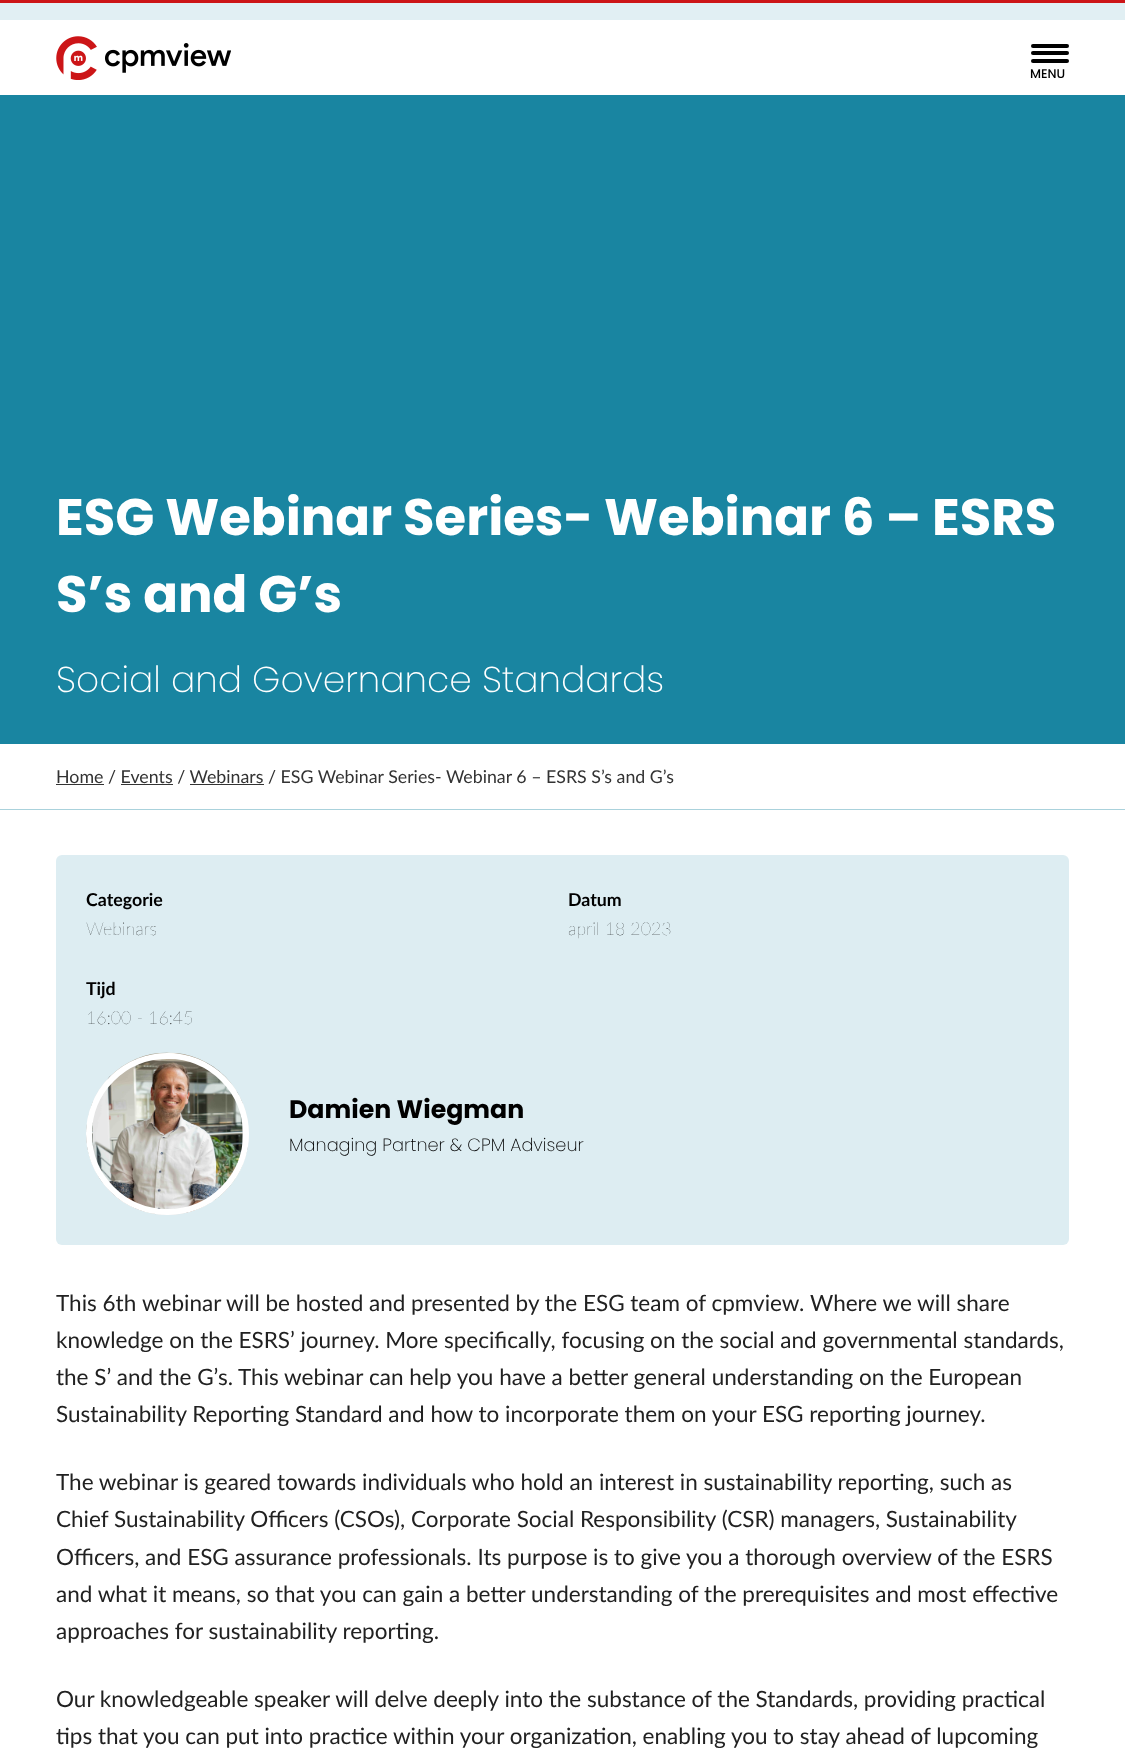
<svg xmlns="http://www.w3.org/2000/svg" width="1125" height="1758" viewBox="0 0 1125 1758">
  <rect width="100%" height="100%" fill="#ffffff"/>
  <rect x="0" y="3" width="1125" height="17" fill="#e1eff3"/>
  <rect x="0" y="0" width="1125" height="3" fill="#cc1517"/>
  <image x="56" y="36" width="175" height="44" href="img1.png"/>
  <rect x="1031" y="44" width="38" height="4" rx="2" fill="#000000"/>
  <rect x="1031" y="51" width="38" height="4" rx="2" fill="#000000"/>
  <rect x="1031" y="59" width="38" height="4" rx="2" fill="#000000"/>
  <text x="1030" y="78" font-family="Poppins" font-size="12.5" font-weight="500" fill="#000000">MENU</text>
  <rect x="0" y="95" width="1125" height="649" fill="#1985a1"/>
  <text x="56" y="535" font-family="Poppins" font-size="51.3" font-weight="bold" fill="#ffffff">ESG Webinar Series- Webinar 6 – ESRS</text>
  <text x="56" y="612" font-family="Poppins" font-size="51.3" font-weight="bold" fill="#ffffff">S’s and G’s</text>
  <text x="56" y="692" font-family="Poppins" font-size="36" font-weight="200" fill="#ffffff">Social and Governance Standards</text>
  <rect x="0" y="809" width="1125" height="1" fill="#aad2dc"/>
  <text x="56" y="783" font-family="Lato" font-size="17.8" fill="#333333">Home / Events / Webinars / ESG Webinar Series- Webinar 6 – ESRS S’s and G’s</text>
  <rect x="56" y="784" width="48" height="1" fill="#333333"/>
  <rect x="121" y="784" width="52" height="1" fill="#333333"/>
  <rect x="190" y="784" width="74" height="1" fill="#333333"/>
  <rect x="56" y="855" width="1013" height="390" rx="6" fill="#ddedf2"/>
  <text x="86" y="906" font-family="Lato" font-size="17.8" font-weight="bold" fill="#000000">Categorie</text>
  <text x="86" y="935" font-family="Lato" font-size="17.8" font-weight="200" fill="#000000">Webinars</text>
  <text x="568" y="906" font-family="Lato" font-size="17.8" font-weight="bold" fill="#000000">Datum</text>
  <text x="568" y="935" font-family="Lato" font-size="17.8" font-weight="200" fill="#000000">april 18 2023</text>
  <text x="86" y="995" font-family="Lato" font-size="17.8" font-weight="bold" fill="#000000">Tijd</text>
  <text x="86" y="1024" font-family="Lato" font-size="17.8" font-weight="200" fill="#000000">16:00 - 16:45</text>
  <image x="86" y="1052" width="163" height="163" href="img2.png"/>
  <rect x="89" y="1056" width="157" height="156" rx="78" fill="none" stroke="#ffffff" stroke-width="6"/>
  <text x="289" y="1118" font-family="Poppins" font-size="25.25" font-weight="bold" fill="#000000">Damien Wiegman</text>
  <text x="289" y="1151" font-family="Poppins" font-size="17.8" font-weight="200" fill="#000000">Managing Partner &amp; CPM Adviseur</text>
  <text x="56" y="1311" font-family="Lato" font-size="22.5" fill="#212121">This 6th</text>
  <text x="142" y="1311" font-family="Lato" font-size="22.5" fill="#212121">webinar</text>
  <text x="226" y="1311" font-family="Lato" font-size="22.5" fill="#212121">will be hosted and presented by the ESG team of cpmview</text>
  <text x="799" y="1311" font-family="Lato" font-size="22.5" fill="#212121">.</text>
  <text x="810" y="1311" font-family="Lato" font-size="22.5" fill="#212121">Where we</text>
  <text x="917" y="1311" font-family="Lato" font-size="22.5" fill="#212121">will share</text>
  <text x="56" y="1348" font-family="Lato" font-size="22.5" fill="#212121">knowledge on the ESRS’ journey. More specifically, focusing on the social and governmental standards,</text>
  <text x="56" y="1385" font-family="Lato" font-size="22.5" fill="#212121">the S’ and the G’s.</text>
  <text x="238" y="1385" font-family="Lato" font-size="22.5" fill="#212121">This</text>
  <text x="284" y="1385" font-family="Lato" font-size="22.5" fill="#212121">webinar</text>
  <text x="369" y="1385" font-family="Lato" font-size="22.5" fill="#212121">can help you have a better general understanding on the European</text>
  <text x="56" y="1422" font-family="Lato" font-size="22.5" fill="#212121">Sustainability Reporting Standard and how to incorporate them on your ESG reporting journey.</text>
  <text x="56" y="1490" font-family="Lato" font-size="22.5" fill="#212121">The webinar is geared towards individuals who hold an interest in sustainability reporting, such as</text>
  <text x="56" y="1527" font-family="Lato" font-size="22.5" fill="#212121">Chief Sustainability Officers (CSOs), Corporate Social Responsibility (CSR) managers, Sustainability</text>
  <text x="56" y="1565" font-family="Lato" font-size="22.5" fill="#212121">Officers, and ESG assurance professionals. Its purpose is to give you a thorough overview of the ESRS</text>
  <text x="56" y="1602" font-family="Lato" font-size="22.5" fill="#212121">and what it means, so that you can gain a better understanding of the prerequisites and most effective</text>
  <text x="56" y="1639" font-family="Lato" font-size="22.5" fill="#212121">approaches for sustainability reporting.</text>
  <text x="56" y="1707" font-family="Lato" font-size="22.5" fill="#212121">Our knowledgeable speaker will delve deeply into the substance of the Standards, providing practical</text>
  <text x="56" y="1744" font-family="Lato" font-size="22.5" fill="#212121">tips that you can put into practice within your organization, enabling you to stay ahead of lupcoming</text>
</svg>
